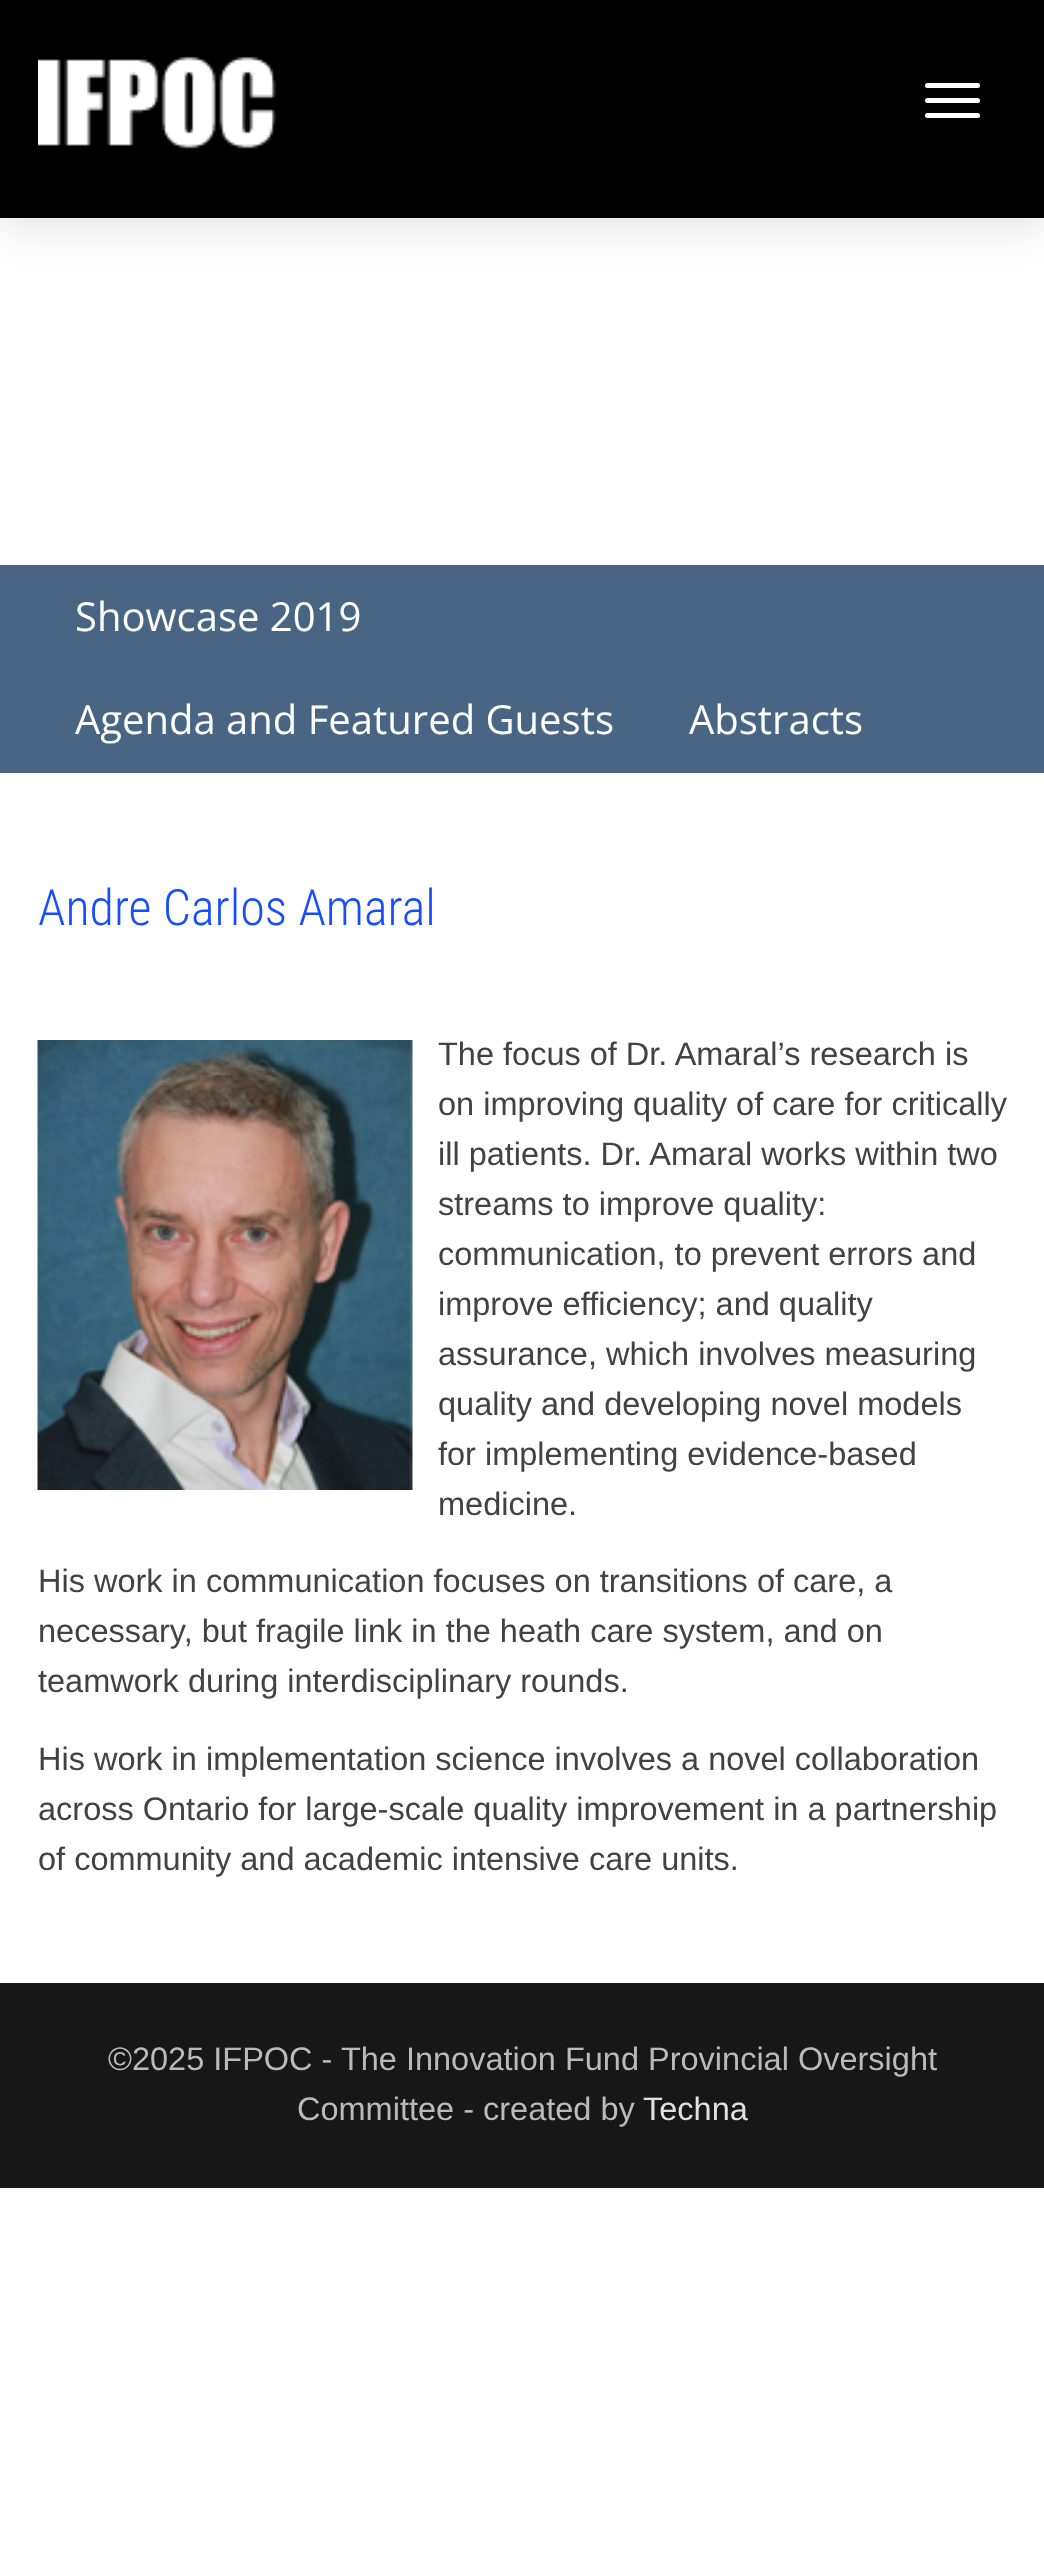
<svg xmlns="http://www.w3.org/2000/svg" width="1044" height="2572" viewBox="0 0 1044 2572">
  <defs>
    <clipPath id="clip1"><path d="M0 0H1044V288H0ZM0-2H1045V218H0Z" clip-rule="evenodd"/></clipPath>
    <filter id="blur1" x="-50%" y="-200%" width="200%" height="500%"><feGaussianBlur stdDeviation="19"/></filter>
  </defs>
  <rect width="100%" height="100%" fill="#ffffff"/>
  <rect x="0" y="0" width="1044" height="218" fill="#000000"/>
  <g clip-path="url(#clip1)">
    <rect x="0" y="10" width="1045" height="220" fill="#000000" fill-opacity="0.1" filter="url(#blur1)"/>
  </g>
  <image x="38" y="56" width="238" height="93" href="img1.png"/>
  <rect x="925" y="83" width="55" height="5" rx="2.5" fill="#ffffff"/>
  <rect x="925" y="98" width="55" height="5" rx="2.5" fill="#ffffff"/>
  <rect x="925" y="113" width="55" height="5" rx="2.5" fill="#ffffff"/>
  <rect x="0" y="565" width="1044" height="208" fill="#496584"/>
  <text x="75" y="631" font-family="Open Sans" font-size="40" fill="#ffffff">Showcase 2019</text>
  <text x="75" y="734" font-family="Open Sans" font-size="40" fill="#ffffff">Agenda and Featured Guests</text>
  <text x="689" y="734" font-family="Open Sans" font-size="40" fill="#ffffff">Abstracts</text>
  <text x="38" y="925" font-family="Roboto Condensed" font-size="50" font-weight="300" fill="#164dff">Andre Carlos Amaral</text>
  <image x="37" y="1040" width="376" height="450" href="img2.png"/>
  <text x="438" y="1065" font-family="Liberation Sans" font-size="32.5" fill="#424242">The focus of Dr. Amaral’s research is</text>
  <text x="438" y="1115" font-family="Liberation Sans" font-size="32.5" fill="#424242">on improving quality of care for critically</text>
  <text x="438" y="1165" font-family="Liberation Sans" font-size="32.5" fill="#424242">ill patients. Dr. Amaral works within two</text>
  <text x="438" y="1215" font-family="Liberation Sans" font-size="32.5" fill="#424242">streams to improve quality:</text>
  <text x="438" y="1265" font-family="Liberation Sans" font-size="32.5" fill="#424242">communication, to prevent errors and</text>
  <text x="438" y="1315" font-family="Liberation Sans" font-size="32.5" fill="#424242">improve efficiency; and quality</text>
  <text x="438" y="1365" font-family="Liberation Sans" font-size="32.5" fill="#424242">assurance, which involves measuring</text>
  <text x="438" y="1415" font-family="Liberation Sans" font-size="32.5" fill="#424242">quality and developing novel models</text>
  <text x="438" y="1465" font-family="Liberation Sans" font-size="32.5" fill="#424242">for implementing evidence-based</text>
  <text x="438" y="1515" font-family="Liberation Sans" font-size="32.5" fill="#424242">medicine.</text>
  <text x="38" y="1592" font-family="Liberation Sans" font-size="32.5" fill="#424242">His work in communication focuses on transitions of care, a</text>
  <text x="38" y="1642" font-family="Liberation Sans" font-size="32.5" fill="#424242">necessary, but fragile link in the heath care system, and on</text>
  <text x="38" y="1692" font-family="Liberation Sans" font-size="32.5" fill="#424242">teamwork during interdisciplinary rounds.</text>
  <text x="38" y="1770" font-family="Liberation Sans" font-size="32.5" fill="#424242">His work in implementation science involves a novel collaboration</text>
  <text x="38" y="1820" font-family="Liberation Sans" font-size="32.5" fill="#424242">across Ontario for large-scale quality improvement in a partnership</text>
  <text x="38" y="1870" font-family="Liberation Sans" font-size="32.5" fill="#424242">of community and academic intensive care units.</text>
  <rect x="0" y="1983" width="1044" height="205" fill="#171717"/>
  <text x="108" y="2070" font-family="Liberation Sans" font-size="32.5" fill="#bababa">©2025 IFPOC - The Innovation Fund Provincial Oversight</text>
  <text x="297" y="2120" font-family="Liberation Sans" font-size="32.5" fill="#bababa">Committee - created by</text>
  <text x="643" y="2120" font-family="Liberation Sans" font-size="32.5" fill="#e0e0e0">Techna</text>
</svg>
